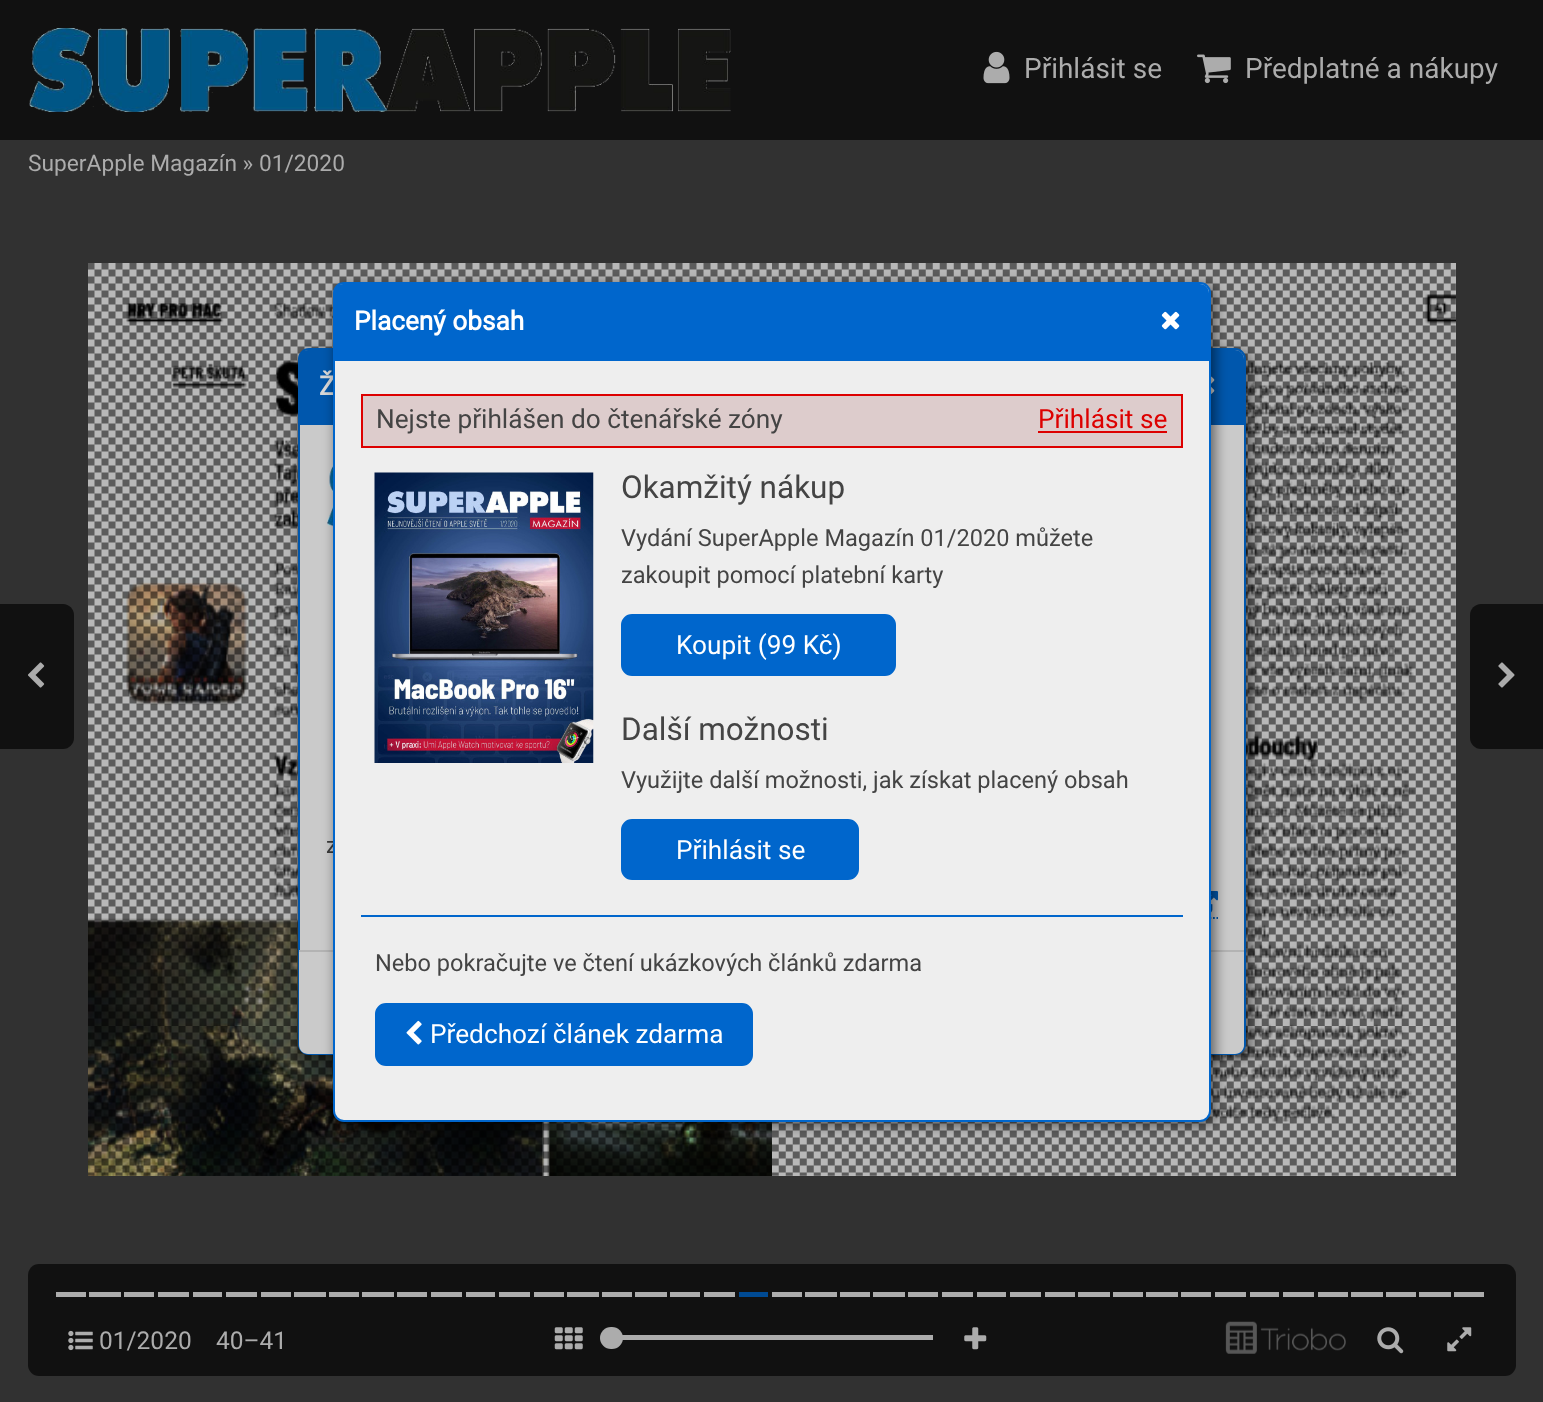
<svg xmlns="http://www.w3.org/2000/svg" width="1543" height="1402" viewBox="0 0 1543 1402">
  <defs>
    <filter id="blur1" x="-50%" y="-200%" width="200%" height="500%"><feGaussianBlur stdDeviation="6.5"/></filter>
  </defs>
  <rect width="100%" height="100%" fill="#313131"/>
  <rect x="0" y="0" width="1543" height="140" fill="#111111"/>
  <image x="29" y="28" width="702" height="84" href="img1.png"/>
  <image x="983" y="51" width="27" height="33" href="img2.png"/>
  <text x="1024" y="78" font-family="Roboto" font-size="28" fill="#acacac">Přihlásit se</text>
  <image x="1197" y="54" width="34" height="30" href="img3.png"/>
  <text x="1245" y="78" font-family="Roboto" font-size="28" fill="#acacac">Předplatné a nákupy</text>
  <text x="28" y="171" font-family="Roboto" font-size="22.75" fill="#acacac">SuperApple Magazín » 01/2020</text>
  <path d="M0 604H63C69 604 74 609 74 615V738C74 744 69 749 63 749H0Z" fill="#111111"/>
  <image x="28" y="662" width="17" height="26" href="img4.png"/>
  <path d="M1481 604H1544V749H1481C1475 749 1470 744 1470 738V615C1470 609 1475 604 1481 604Z" fill="#111111"/>
  <image x="1498" y="662" width="17" height="26" href="img5.png"/>
  <rect x="28" y="1264" width="1488" height="112" rx="11" fill="#111111"/>
  <rect x="56" y="1292" width="30" height="5" fill="#acacac"/>
  <rect x="89" y="1292" width="32" height="5" fill="#acacac"/>
  <rect x="124" y="1292" width="30" height="5" fill="#acacac"/>
  <rect x="158" y="1292" width="31" height="5" fill="#acacac"/>
  <rect x="193" y="1292" width="29" height="5" fill="#acacac"/>
  <rect x="226" y="1292" width="31" height="5" fill="#acacac"/>
  <rect x="261" y="1292" width="30" height="5" fill="#acacac"/>
  <rect x="294" y="1292" width="32" height="5" fill="#acacac"/>
  <rect x="329" y="1292" width="30" height="5" fill="#acacac"/>
  <rect x="362" y="1292" width="32" height="5" fill="#acacac"/>
  <rect x="397" y="1292" width="30" height="5" fill="#acacac"/>
  <rect x="431" y="1292" width="31" height="5" fill="#acacac"/>
  <rect x="466" y="1292" width="29" height="5" fill="#acacac"/>
  <rect x="499" y="1292" width="31" height="5" fill="#acacac"/>
  <rect x="534" y="1292" width="30" height="5" fill="#acacac"/>
  <rect x="567" y="1292" width="32" height="5" fill="#acacac"/>
  <rect x="602" y="1292" width="30" height="5" fill="#acacac"/>
  <rect x="635" y="1292" width="32" height="5" fill="#acacac"/>
  <rect x="670" y="1292" width="30" height="5" fill="#acacac"/>
  <rect x="704" y="1292" width="31" height="5" fill="#acacac"/>
  <rect x="772" y="1292" width="30" height="5" fill="#acacac"/>
  <rect x="805" y="1292" width="32" height="5" fill="#acacac"/>
  <rect x="840" y="1292" width="30" height="5" fill="#acacac"/>
  <rect x="873" y="1292" width="32" height="5" fill="#acacac"/>
  <rect x="908" y="1292" width="30" height="5" fill="#acacac"/>
  <rect x="942" y="1292" width="31" height="5" fill="#acacac"/>
  <rect x="977" y="1292" width="29" height="5" fill="#acacac"/>
  <rect x="1010" y="1292" width="31" height="5" fill="#acacac"/>
  <rect x="1045" y="1292" width="30" height="5" fill="#acacac"/>
  <rect x="1078" y="1292" width="32" height="5" fill="#acacac"/>
  <rect x="1113" y="1292" width="30" height="5" fill="#acacac"/>
  <rect x="1146" y="1292" width="32" height="5" fill="#acacac"/>
  <rect x="1181" y="1292" width="30" height="5" fill="#acacac"/>
  <rect x="1215" y="1292" width="31" height="5" fill="#acacac"/>
  <rect x="1250" y="1292" width="29" height="5" fill="#acacac"/>
  <rect x="1283" y="1292" width="31" height="5" fill="#acacac"/>
  <rect x="1318" y="1292" width="30" height="5" fill="#acacac"/>
  <rect x="1351" y="1292" width="32" height="5" fill="#acacac"/>
  <rect x="1386" y="1292" width="30" height="5" fill="#acacac"/>
  <rect x="1419" y="1292" width="32" height="5" fill="#acacac"/>
  <rect x="1454" y="1292" width="30" height="5" fill="#acacac"/>
  <rect x="739" y="1292" width="29" height="5" fill="#004a93"/>
  <image x="68" y="1330" width="25" height="21" href="img6.png"/>
  <text x="99" y="1349" font-family="Roboto" font-size="24.5" fill="#acacac">01/2020</text>
  <text x="216" y="1349" font-family="Roboto" font-size="24.5" fill="#acacac">40–41</text>
  <image x="554" y="1327" width="29" height="23" href="img7.png"/>
  <rect x="622" y="1335" width="311" height="5" fill="#acacac"/>
  <rect x="600" y="1327" width="23" height="22" rx="11" fill="#acacac"/>
  <image x="964" y="1327" width="23" height="23" href="img8.png"/>
  <image x="1225" y="1321" width="121" height="33" href="img9.png"/>
  <image x="1377" y="1327" width="27" height="27" href="img10.png"/>
  <image x="1447" y="1327" width="25" height="25" href="img11.png"/>
  <rect x="88" y="263" width="684" height="29" fill="#b8b8b8"/>
  <image x="88" y="292" width="684" height="884" href="img13.png"/>
  <image x="88" y="263" width="684" height="913" href="img12.png"/>
  <rect x="772" y="263" width="684" height="913" fill="#b8b8b8"/>
  <image x="801" y="291" width="655" height="837" href="img15.png"/>
  <image x="772" y="263" width="684" height="913" href="img14.png"/>
  <rect x="301" y="352" width="949" height="707" rx="11" fill="#000000" fill-opacity="0.53" filter="url(#blur1)"/>
  <rect x="299" y="349" width="946" height="705" rx="10" fill="#cacaca" stroke="#0057ad" stroke-width="2"/>
  <path d="M308 350H1235C1240 350 1244 354 1244 359V425H299V359C299 354 303 350 308 350Z" fill="#0057ad"/>
  <text x="319" y="395" font-family="Roboto" font-size="26.25" font-weight="bold" fill="#d9d9d9">Ž</text>
  <image x="1211" y="376" width="4" height="18" href="img16.png"/>
  <image x="327" y="465" width="6" height="62" href="img17.png"/>
  <text x="326" y="853" font-family="Roboto" font-size="22.75" fill="#3a3a3a">z</text>
  <path d="M1192 918H1218" fill="none" stroke="#0057ad" stroke-width="1.8" stroke-dasharray="1.75 1.75"/>
  <image x="1211" y="891" width="7" height="22" href="img18.png"/>
  <path d="M299 950H1244V1045C1244 1050 1240 1054 1235 1054H308C303 1054 299 1050 299 1045Z" fill="#cacaca"/>
  <rect x="299" y="950" width="945" height="2" fill="#b3b3b3"/>
  <rect x="336" y="285" width="879" height="840" rx="11" fill="#000000" fill-opacity="0.53" filter="url(#blur1)"/>
  <rect x="334" y="283" width="876" height="838" rx="10" fill="#eeeeee" stroke="#0066cc" stroke-width="2"/>
  <path d="M343 284H1200C1205 284 1209 288 1209 293V361H334V293C334 288 338 284 343 284Z" fill="#0066cc"/>
  <text x="354" y="330" font-family="Roboto" font-size="26.25" font-weight="bold" fill="#ffffff">Placený obsah</text>
  <image x="1161" y="311" width="19" height="19" href="img19.png"/>
  <rect x="362" y="395" width="820" height="52" fill="#ddcccc" stroke="#dd0000" stroke-width="2"/>
  <text x="376" y="428" font-family="Roboto" font-size="26.25" fill="#444444">Nejste přihlášen do čtenářské zóny</text>
  <text x="1038" y="428" font-family="Roboto" font-size="26.25" fill="#dd0000">Přihlásit se</text>
  <rect x="1038" y="431" width="129" height="2" fill="#dd0000"/>
  <image x="374" y="472" width="220" height="291" href="img20.png"/>
  <text x="621" y="498" font-family="Roboto" font-size="31.5" fill="#444444">Okamžitý nákup</text>
  <text x="621" y="546" font-family="Roboto" font-size="23.6" fill="#444444">Vydání SuperApple Magazín 01/2020 můžete</text>
  <text x="621" y="583" font-family="Roboto" font-size="23.6" fill="#444444">zakoupit pomocí platební karty</text>
  <rect x="622" y="615" width="273" height="60" rx="10" fill="#0066cc" stroke="#0066cc" stroke-width="2"/>
  <text x="676" y="654" font-family="Roboto" font-size="26.25" fill="#ffffff">Koupit (99 Kč)</text>
  <text x="621" y="740" font-family="Roboto" font-size="31.5" fill="#444444">Další možnosti</text>
  <text x="621" y="788" font-family="Roboto" font-size="23.6" fill="#444444">Využijte další možnosti, jak získat placený obsah</text>
  <rect x="622" y="820" width="236" height="59" rx="10" fill="#0066cc" stroke="#0066cc" stroke-width="2"/>
  <text x="676" y="859" font-family="Roboto" font-size="26.25" fill="#ffffff">Přihlásit se</text>
  <rect x="361" y="915" width="822" height="2" fill="#0066cc"/>
  <text x="375" y="971" font-family="Roboto" font-size="23.6" fill="#444444">Nebo pokračujte ve čtení ukázkových článků zdarma</text>
  <rect x="376" y="1004" width="376" height="61" rx="10" fill="#0066cc" stroke="#0066cc" stroke-width="2"/>
  <image x="406" y="1020" width="16" height="25" href="img21.png"/>
  <text x="430" y="1043" font-family="Roboto" font-size="26.25" fill="#ffffff">Předchozí článek zdarma</text>
</svg>
